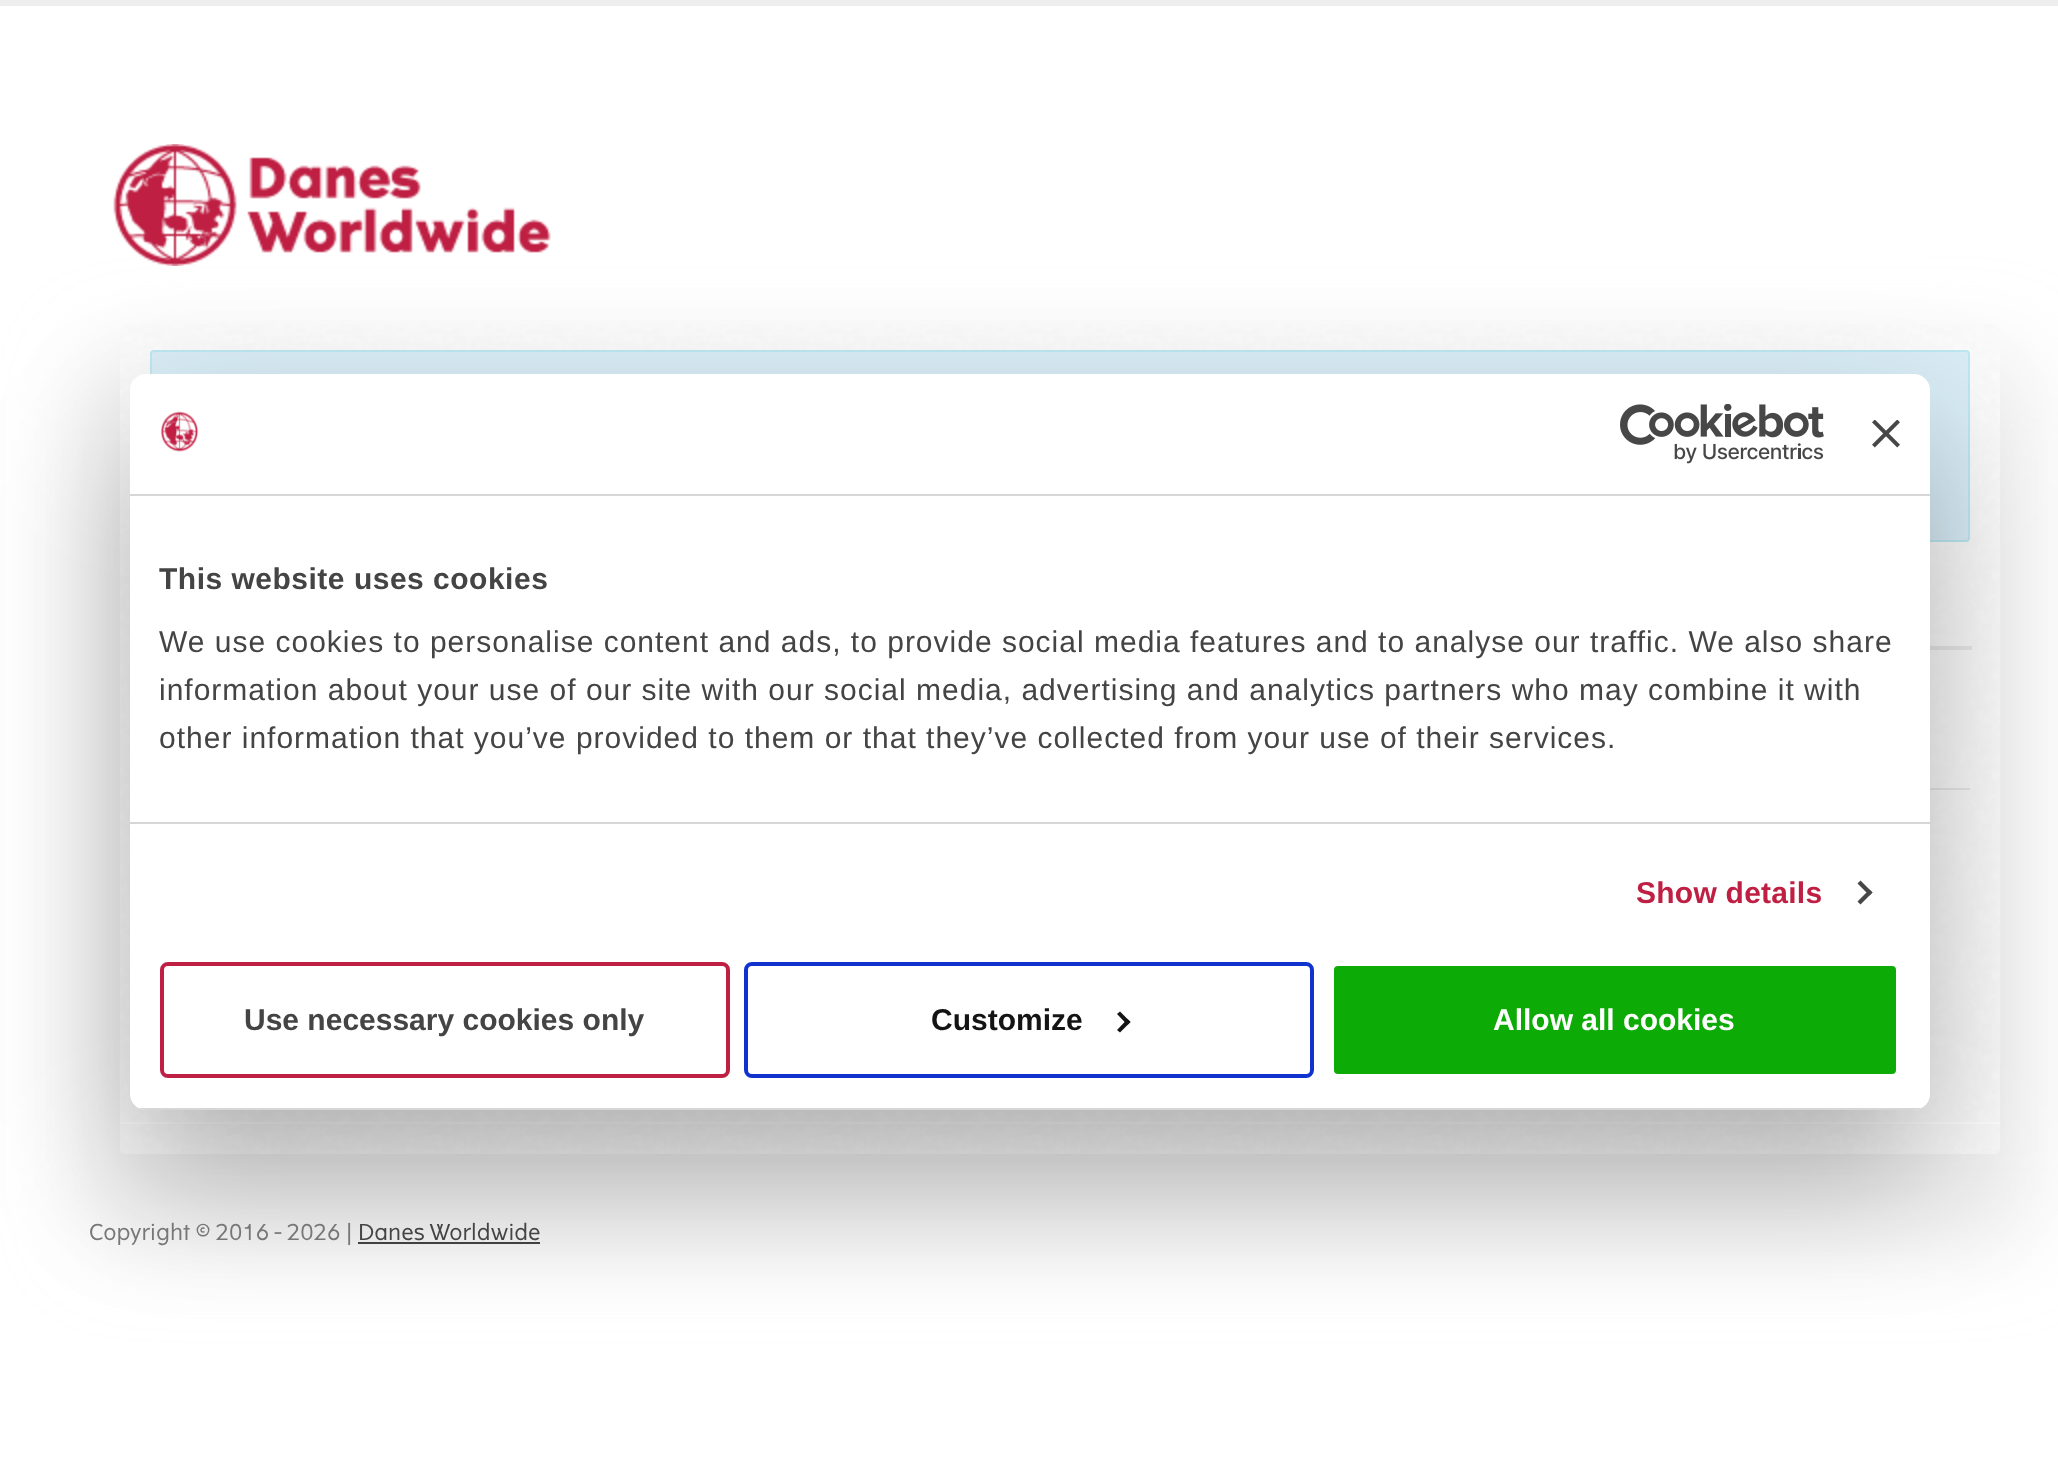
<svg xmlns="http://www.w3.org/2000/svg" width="2058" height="1481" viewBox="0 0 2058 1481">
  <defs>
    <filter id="blur1" x="-50%" y="-200%" width="200%" height="500%"><feGaussianBlur stdDeviation="40"/></filter>
    <filter id="blur2" x="-50%" y="-200%" width="200%" height="500%"><feGaussianBlur stdDeviation="68"/></filter>
    <clipPath id="clip1"><rect x="130" y="374" width="1800" height="736" rx="16"/></clipPath>
  </defs>
  <rect width="100%" height="100%" fill="#ffffff"/>
  <rect x="0" y="0" width="2058" height="6" fill="#eeeeee"/>
  <image x="113" y="144" width="438" height="122" href="img1.png"/>
  <rect x="80" y="344" width="1960" height="910" rx="46" fill="#dbdbdb" fill-opacity="0.4" filter="url(#blur1)"/>
  <image x="120" y="324" width="1880" height="830" href="img2.png"/>
  <rect x="151" y="351" width="1818" height="190" rx="3" fill="#d9edf7" stroke="#bce8f1" stroke-width="2"/>
  <rect x="1930" y="646" width="42" height="4" fill="#e8e8e8"/>
  <rect x="1945" y="650" width="25" height="68" fill="#f9f9f9"/>
  <rect x="1930" y="788" width="40" height="2" fill="#e8e8e8"/>
  <rect x="120" y="1122" width="1880" height="2" fill="#ffffff"/>
  <rect x="358" y="1242" width="182" height="2" fill="#444444"/>
  <rect x="130" y="438" width="1800" height="736" rx="16" fill="#000000" fill-opacity="0.3" filter="url(#blur2)"/>
  <rect x="130" y="374" width="1800" height="736" rx="16" fill="#ffffff"/>
  <rect x="130" y="494" width="1800" height="2" fill="#d6d6d6"/>
  <image x="160" y="411" width="39" height="41" href="img3.png"/>
  <image x="1620" y="404" width="204" height="60" href="img4.png"/>
  <image x="1872" y="420" width="28" height="28" href="img5.png"/>
  <rect x="130" y="822" width="1800" height="2" fill="#d6d6d6"/>
  <text x="159" y="589" font-family="Liberation Sans" font-size="30" font-weight="bold" letter-spacing="0.5" fill="#444444">This website uses cookies</text>
  <text x="159" y="652" font-family="Liberation Sans" font-size="30" letter-spacing="1" fill="#444444">We use cookies to personalise content and ads, to provide social media features and to analyse our traffic. We also share</text>
  <text x="159" y="700" font-family="Liberation Sans" font-size="30" letter-spacing="1" fill="#444444">information about your use of our site with our social media, advertising and analytics partners who may combine it with</text>
  <text x="159" y="748" font-family="Liberation Sans" font-size="30" letter-spacing="1" fill="#444444">other information that you’ve provided to them or that they’ve collected from your use of their services.</text>
  <text x="1636" y="903" font-family="Liberation Sans" font-size="30" font-weight="bold" letter-spacing="0.25" fill="#be1f43">Show details</text>
  <path d="M1860.5 880.5L1872.5 892.5L1869.5 895.5L1857.5 883.5Z" fill="#474747"/>
  <path d="M1869.5 889.5L1872.5 892.5L1860.5 904.5L1857.5 901.5Z" fill="#474747"/>
  <g clip-path="url(#clip1)">
    <rect x="130" y="1108" width="1800" height="2" fill="#d6d6d6"/>
  </g>
  <rect x="162" y="964" width="566" height="112" rx="6" fill="none" stroke="#be1f43" stroke-width="4"/>
  <text x="244" y="1030" font-family="Liberation Sans" font-size="30" font-weight="bold" fill="#444444">Use necessary cookies only</text>
  <rect x="746" y="964" width="566" height="112" rx="6" fill="none" stroke="#1032cf" stroke-width="4"/>
  <text x="931" y="1030" font-family="Liberation Sans" font-size="30" font-weight="bold" fill="#141414">Customize</text>
  <path d="M1120 1011.5L1130.5 1022L1127.5 1025L1117 1014Z" fill="#141414"/>
  <path d="M1127.5 1019L1130.5 1022L1120 1032.5L1117 1030Z" fill="#141414"/>
  <rect x="1332" y="964" width="566" height="112" rx="6" fill="#0dab05" stroke="#ffffff" stroke-width="4"/>
  <text x="1493" y="1030" font-family="Liberation Sans" font-size="30" font-weight="bold" fill="#ffffff">Allow all cookies</text>
  <text x="89" y="1240" font-family="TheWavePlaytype" font-size="22" fill="#777777">Copyright © 2016 - 2026 |</text>
  <text x="358" y="1240" font-family="TheWavePlaytype" font-size="22" fill="#444444">Danes Worldwide</text>
</svg>
